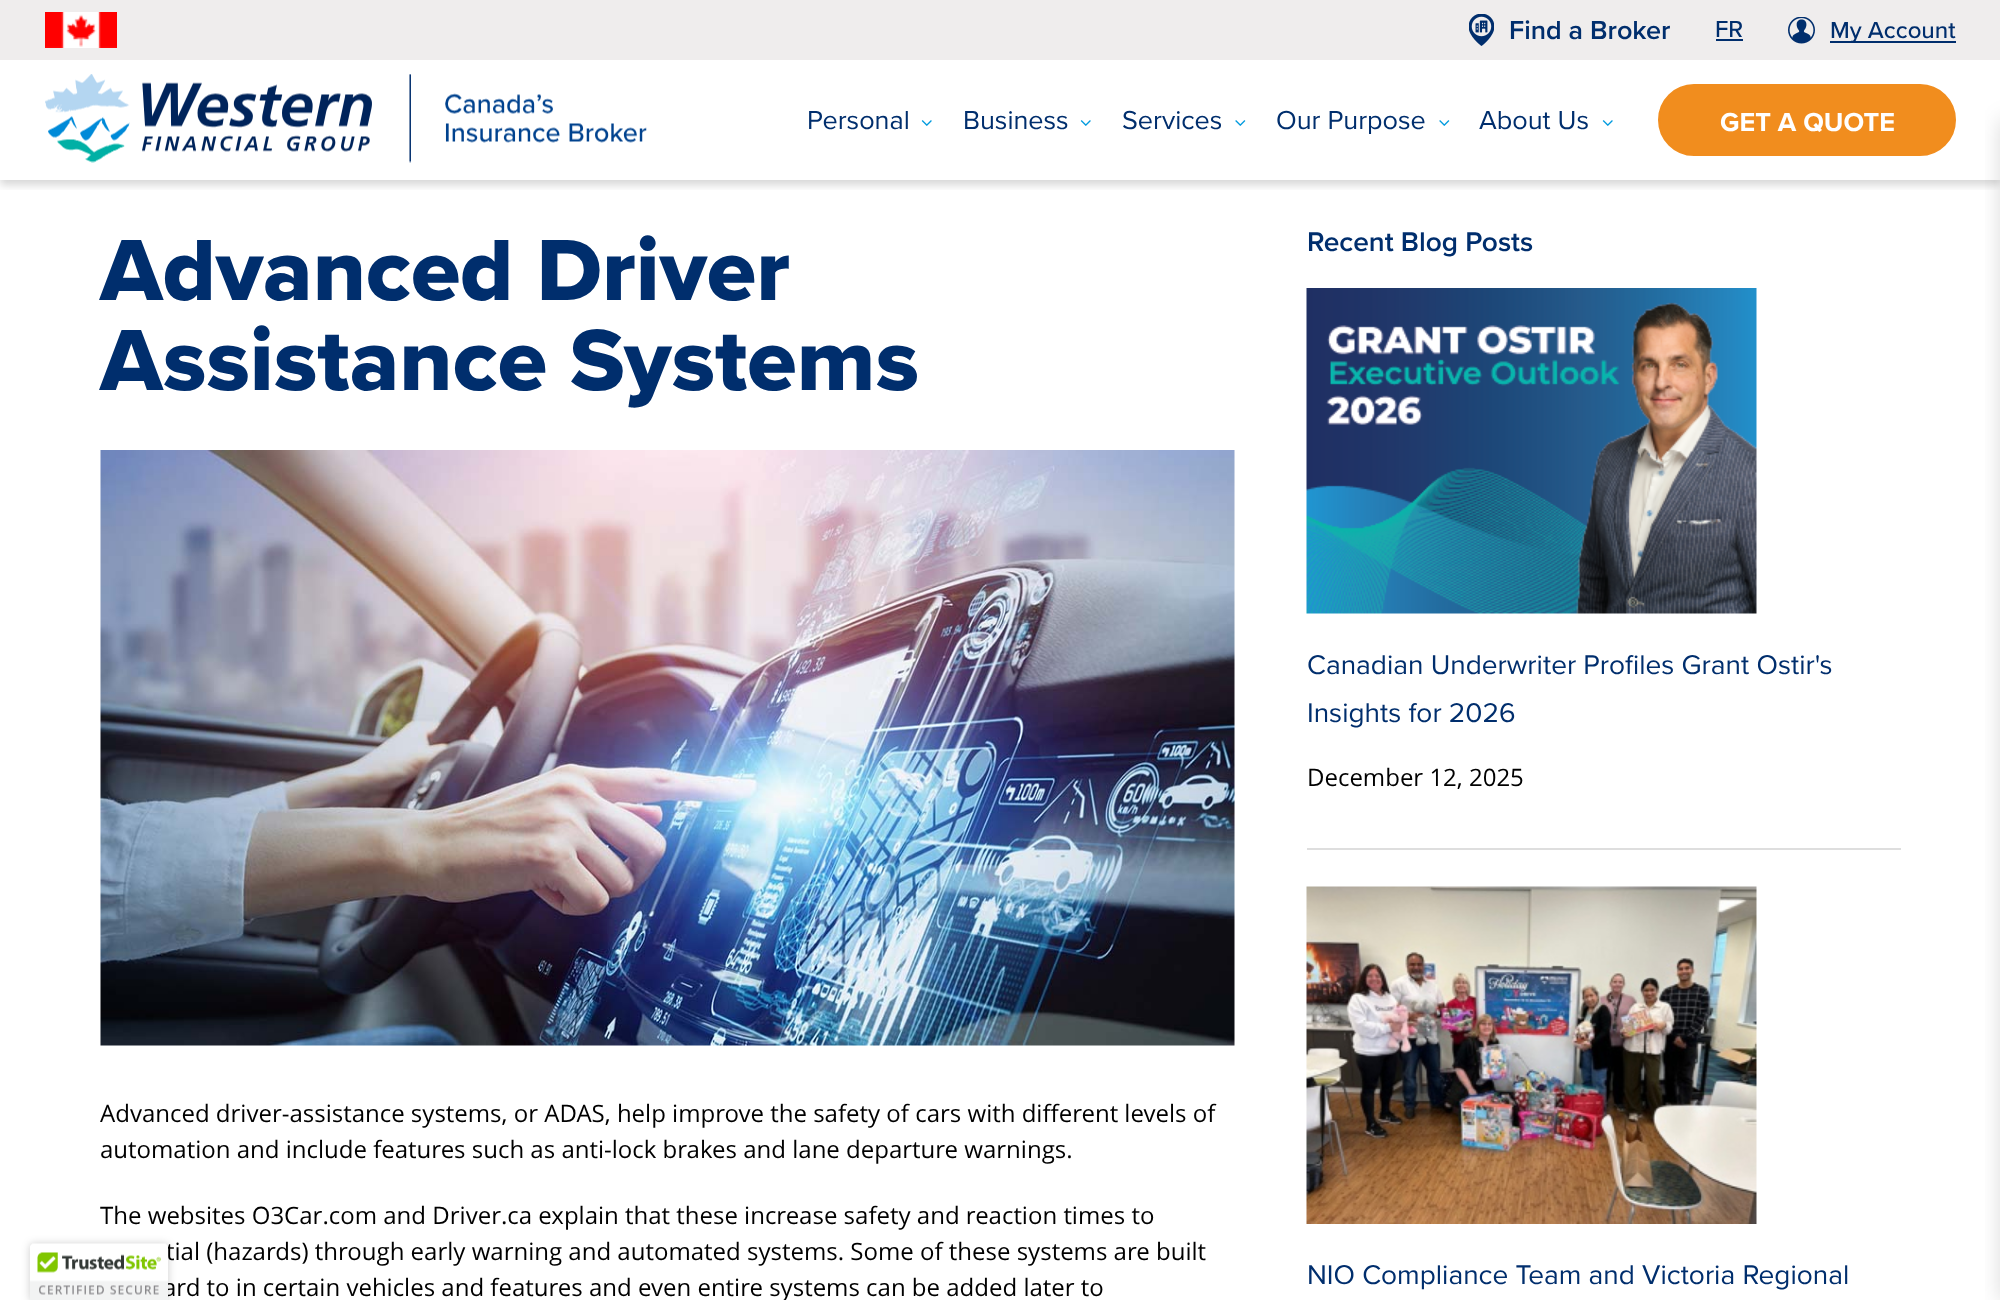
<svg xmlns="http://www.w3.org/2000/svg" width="2000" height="1300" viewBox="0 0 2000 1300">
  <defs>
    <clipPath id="clip1"><rect x="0" y="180" width="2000" height="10"/></clipPath>
    <filter id="blur1" x="-50%" y="-200%" width="200%" height="500%"><feGaussianBlur stdDeviation="4.5"/></filter>
    <filter id="blur2" x="-50%" y="-200%" width="200%" height="500%"><feGaussianBlur stdDeviation="11"/></filter>
    <filter id="blur3" x="-50%" y="-200%" width="200%" height="500%"><feGaussianBlur stdDeviation="4"/></filter>
  </defs>
  <rect width="100%" height="100%" fill="#ffffff"/>
  <g clip-path="url(#clip1)">
    <rect x="0" y="5" width="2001" height="180" fill="#000000" fill-opacity="0.16" filter="url(#blur1)"/>
  </g>
  <rect x="0" y="0" width="2000" height="60" fill="#efeded"/>
  <image x="45" y="12" width="72" height="36" href="img1.png"/>
  <image x="1469" y="14" width="25" height="32" href="img2.png"/>
  <text x="1509" y="39" font-family="Proxima Nova" font-size="27" font-weight="600" fill="#002e6d">Find a Broker</text>
  <text x="1715" y="37" font-family="Proxima Nova" font-size="24" font-weight="500" fill="#002e6d">FR</text>
  <rect x="1716" y="39" width="27" height="2" fill="#002e6d"/>
  <image x="1788" y="17" width="27" height="27" href="img3.png"/>
  <rect x="1830" y="41" width="126" height="2" fill="#002e6d"/>
  <text x="1830" y="38" font-family="Proxima Nova" font-size="24" font-weight="500" fill="#002e6d">My Account</text>
  <image x="45" y="74" width="602" height="89" href="img4.png"/>
  <text x="807" y="129" font-family="Proxima Nova" font-size="27" fill="#002e6d">Personal</text>
  <image x="921" y="120" width="11" height="6" href="img5.png"/>
  <text x="963" y="129" font-family="Proxima Nova" font-size="27" fill="#002e6d">Business</text>
  <image x="1080" y="120" width="11" height="6" href="img5.png"/>
  <text x="1122" y="129" font-family="Proxima Nova" font-size="27" fill="#002e6d">Services</text>
  <image x="1235" y="120" width="11" height="6" href="img6.png"/>
  <text x="1276" y="129" font-family="Proxima Nova" font-size="27" fill="#002e6d">Our Purpose</text>
  <image x="1439" y="120" width="11" height="6" href="img6.png"/>
  <text x="1479" y="129" font-family="Proxima Nova" font-size="27" fill="#002e6d">About Us</text>
  <image x="1602" y="120" width="11" height="6" href="img5.png"/>
  <rect x="1659" y="85" width="296" height="70" rx="35" fill="#f18d1e" stroke="#f18d1e" stroke-width="2"/>
  <text x="1720" y="131" font-family="Proxima Nova" font-size="27" font-weight="bold" fill="#ffffff">GET A QUOTE</text>
  <rect x="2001" y="120" width="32" height="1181" fill="#000000" fill-opacity="0.15" filter="url(#blur2)"/>
  <text x="100" y="300" font-family="Proxima Nova" font-size="90" font-weight="800" fill="#002e6d">Advanced Driver</text>
  <text x="100" y="390" font-family="Proxima Nova" font-size="90" font-weight="800" fill="#002e6d">Assistance Systems</text>
  <image x="100" y="450" width="1135" height="596" href="img7.png"/>
  <text x="100" y="1122" font-family="Open Sans" font-size="24" fill="#000000">Advanced driver-assistance systems, or ADAS, help improve the safety of cars with different levels of</text>
  <text x="100" y="1158" font-family="Open Sans" font-size="24" fill="#000000">automation and include features such as anti-lock brakes and lane departure warnings.</text>
  <text x="100" y="1224" font-family="Open Sans" font-size="24" fill="#000000">The websites O3Car.com and Driver.ca explain that these increase safety and reaction times to</text>
  <text x="166" y="1260" font-family="Open Sans" font-size="24" fill="#000000">tial (hazards) through early warning and automated systems. Some of these systems are built</text>
  <text x="163" y="1296" font-family="Open Sans" font-size="24" fill="#000000">ard to in certain vehicles and features and even entire systems can be added later to</text>
  <text x="1307" y="251" font-family="Proxima Nova" font-size="28" font-weight="600" fill="#002e6d">Recent Blog Posts</text>
  <image x="1306" y="288" width="451" height="326" href="img8.png"/>
  <text x="1307" y="674" font-family="Proxima Nova" font-size="28" fill="#002e6d">Canadian Underwriter Profiles Grant Ostir's</text>
  <text x="1307" y="722" font-family="Proxima Nova" font-size="28" fill="#002e6d">Insights for 2026</text>
  <text x="1307" y="786" font-family="Open Sans" font-size="24" fill="#000000">December 12, 2025</text>
  <rect x="1307" y="848" width="594" height="2" fill="#dedede"/>
  <image x="1306" y="886" width="451" height="338" href="img9.png"/>
  <text x="1307" y="1284" font-family="Proxima Nova" font-size="28" fill="#002e6d">NIO Compliance Team and Victoria Regional</text>
  <rect x="30" y="1244" width="138" height="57" rx="3" fill="#000000" fill-opacity="0.2" filter="url(#blur3)"/>
  <image x="30" y="1243" width="138" height="57" href="img10.png"/>
</svg>
